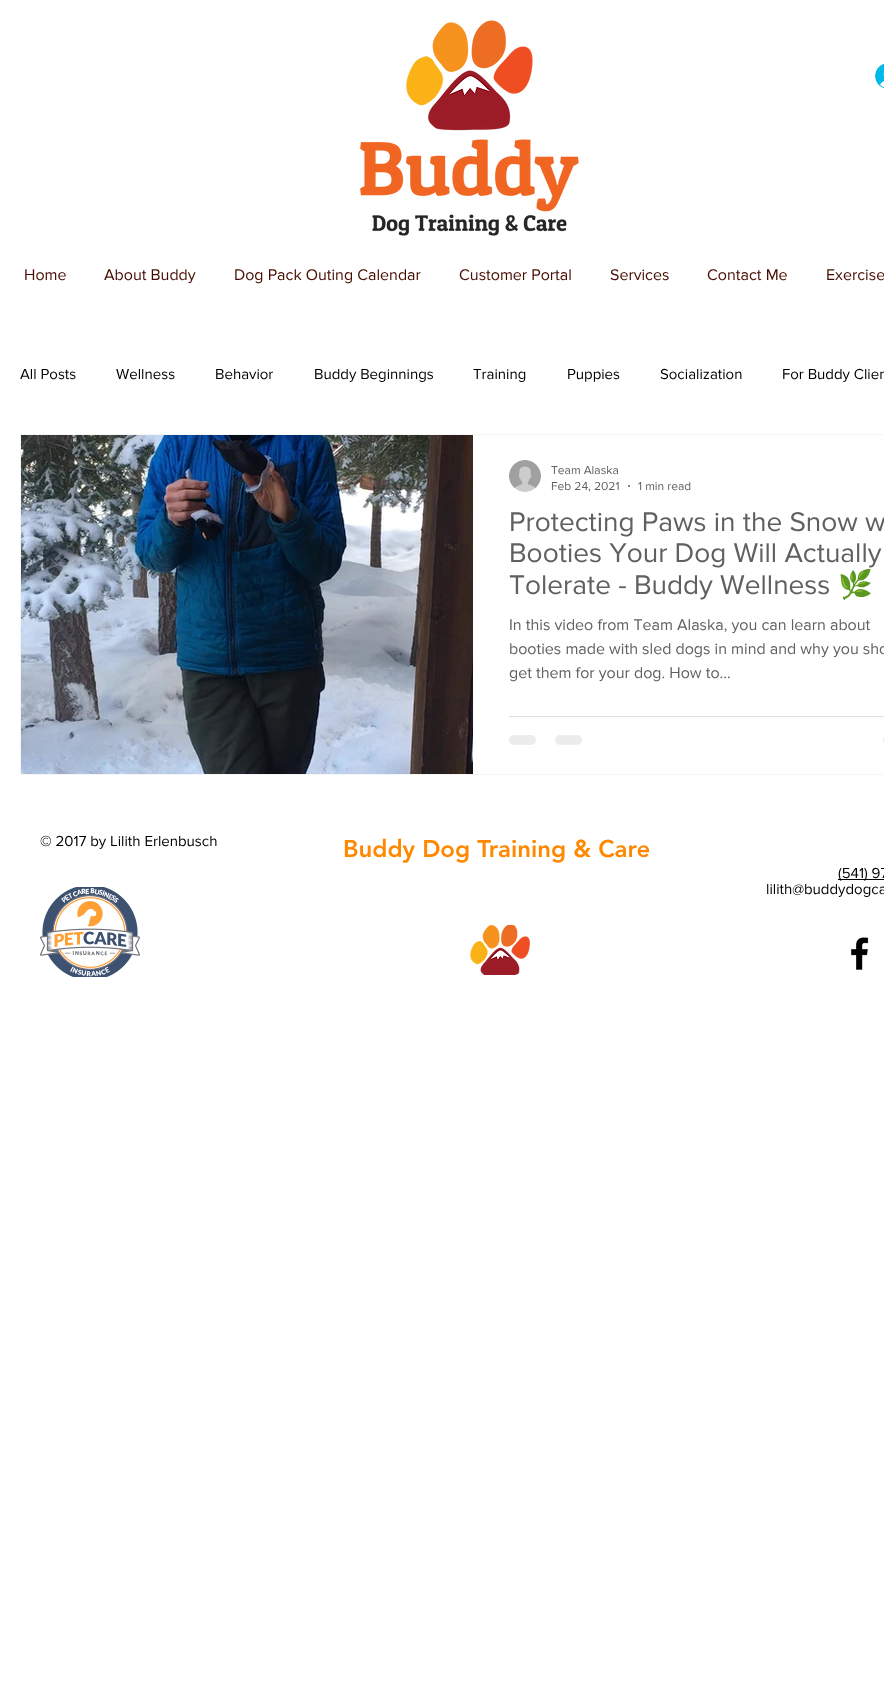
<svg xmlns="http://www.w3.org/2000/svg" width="884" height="1698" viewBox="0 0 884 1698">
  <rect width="100%" height="100%" fill="#ffffff"/>
  <image x="360" y="20" width="219" height="216" href="img1.png"/>
  <image x="875" y="63" width="9" height="26" href="img2.png"/>
  <text x="24" y="280" font-family="'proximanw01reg'" font-size="16" fill="#460b00">Home</text>
  <text x="104" y="280" font-family="'proximanw01reg'" font-size="16" fill="#460b00">About Buddy</text>
  <text x="234" y="280" font-family="'proximanw01reg'" font-size="16" fill="#460b00">Dog Pack Outing Calendar</text>
  <text x="459" y="280" font-family="'proximanw01reg'" font-size="16" fill="#460b00">Customer Portal</text>
  <text x="610" y="280" font-family="'proximanw01reg'" font-size="16" fill="#460b00">Services</text>
  <text x="707" y="280" font-family="'proximanw01reg'" font-size="16" fill="#460b00">Contact Me</text>
  <text x="826" y="280" font-family="'proximanw01reg'" font-size="16" fill="#460b00">Exercise</text>
  <text x="20" y="379" font-family="'proximanw01reg'" font-size="15" fill="#000000">All Posts</text>
  <text x="116" y="379" font-family="'proximanw01reg'" font-size="15" fill="#000000">Wellness</text>
  <text x="215" y="379" font-family="'proximanw01reg'" font-size="15" fill="#000000">Behavior</text>
  <text x="314" y="379" font-family="'proximanw01reg'" font-size="15" fill="#000000">Buddy Beginnings</text>
  <text x="473" y="379" font-family="'proximanw01reg'" font-size="15" fill="#000000">Training</text>
  <text x="567" y="379" font-family="'proximanw01reg'" font-size="15" fill="#000000">Puppies</text>
  <text x="660" y="379" font-family="'proximanw01reg'" font-size="15" fill="#000000">Socialization</text>
  <text x="782" y="379" font-family="'proximanw01reg'" font-size="15" fill="#000000">For Buddy Clien</text>
  <rect x="20.5" y="434.5" width="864" height="340" fill="none" stroke="#f5f5f5"/>
  <image x="21" y="435" width="452" height="339" href="img3.png"/>
  <image x="509" y="460" width="32" height="32" href="img4.png"/>
  <text x="551" y="474" font-family="'proximanw01reg'" font-size="12" fill="#606060">Team Alaska</text>
  <text x="551" y="490" font-family="'proximanw01reg'" font-size="12" fill="#606060">Feb 24, 2021</text>
  <circle cx="629" cy="486" r="1" fill="#606060"/>
  <text x="638" y="490" font-family="'proximanw01reg'" font-size="12" fill="#606060">1 min read</text>
  <text x="509" y="531" font-family="'proximanw01reg'" font-size="28" fill="#606060">Protecting Paws in the Snow w</text>
  <text x="509" y="562" font-family="'proximanw01reg'" font-size="28" fill="#606060">Booties Your Dog Will Actually</text>
  <text x="509" y="594" font-family="'proximanw01reg'" font-size="28" fill="#606060">Tolerate - Buddy Wellness</text>
  <text x="838" y="594" font-family="Noto Color Emoji" font-size="28" fill="#606060">🌿</text>
  <text x="509" y="630" font-family="'proximanw01reg'" font-size="16" fill="#606060">In this video from Team Alaska, you can learn about</text>
  <text x="509" y="654" font-family="'proximanw01reg'" font-size="16" fill="#606060">booties made with sled dogs in mind and why you sho</text>
  <text x="509" y="678" font-family="'proximanw01reg'" font-size="16" fill="#606060">get them for your dog. How to...</text>
  <rect x="509" y="716" width="375" height="1" fill="#dfdfdf"/>
  <rect x="509" y="735" width="27" height="10" rx="5" fill="#ececec"/>
  <rect x="555" y="735" width="27" height="10" rx="5" fill="#ececec"/>
  <rect x="883" y="735" width="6" height="10" rx="5" fill="#ececec"/>
  <text x="40" y="846" font-family="'proximanw01reg'" font-size="15" fill="#000000">© 2017 by Lilith Erlenbusch</text>
  <text x="343" y="857" font-family="'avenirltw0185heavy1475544'" font-size="24" font-weight="900" fill="#ff8800">Buddy Dog Training &amp; Care</text>
  <rect x="838" y="879" width="46" height="1" fill="#000000"/>
  <text x="838" y="878" font-family="'proximanw01reg'" font-size="15" fill="#000000">(541) 97</text>
  <text x="766" y="894" font-family="'proximanw01reg'" font-size="15" fill="#000000">lilith@buddydogca</text>
  <image x="40" y="887" width="100" height="90" href="img5.png"/>
  <image x="470" y="925" width="60" height="50" href="img6.png"/>
  <image x="851" y="937" width="18" height="33" href="img7.png"/>
</svg>
